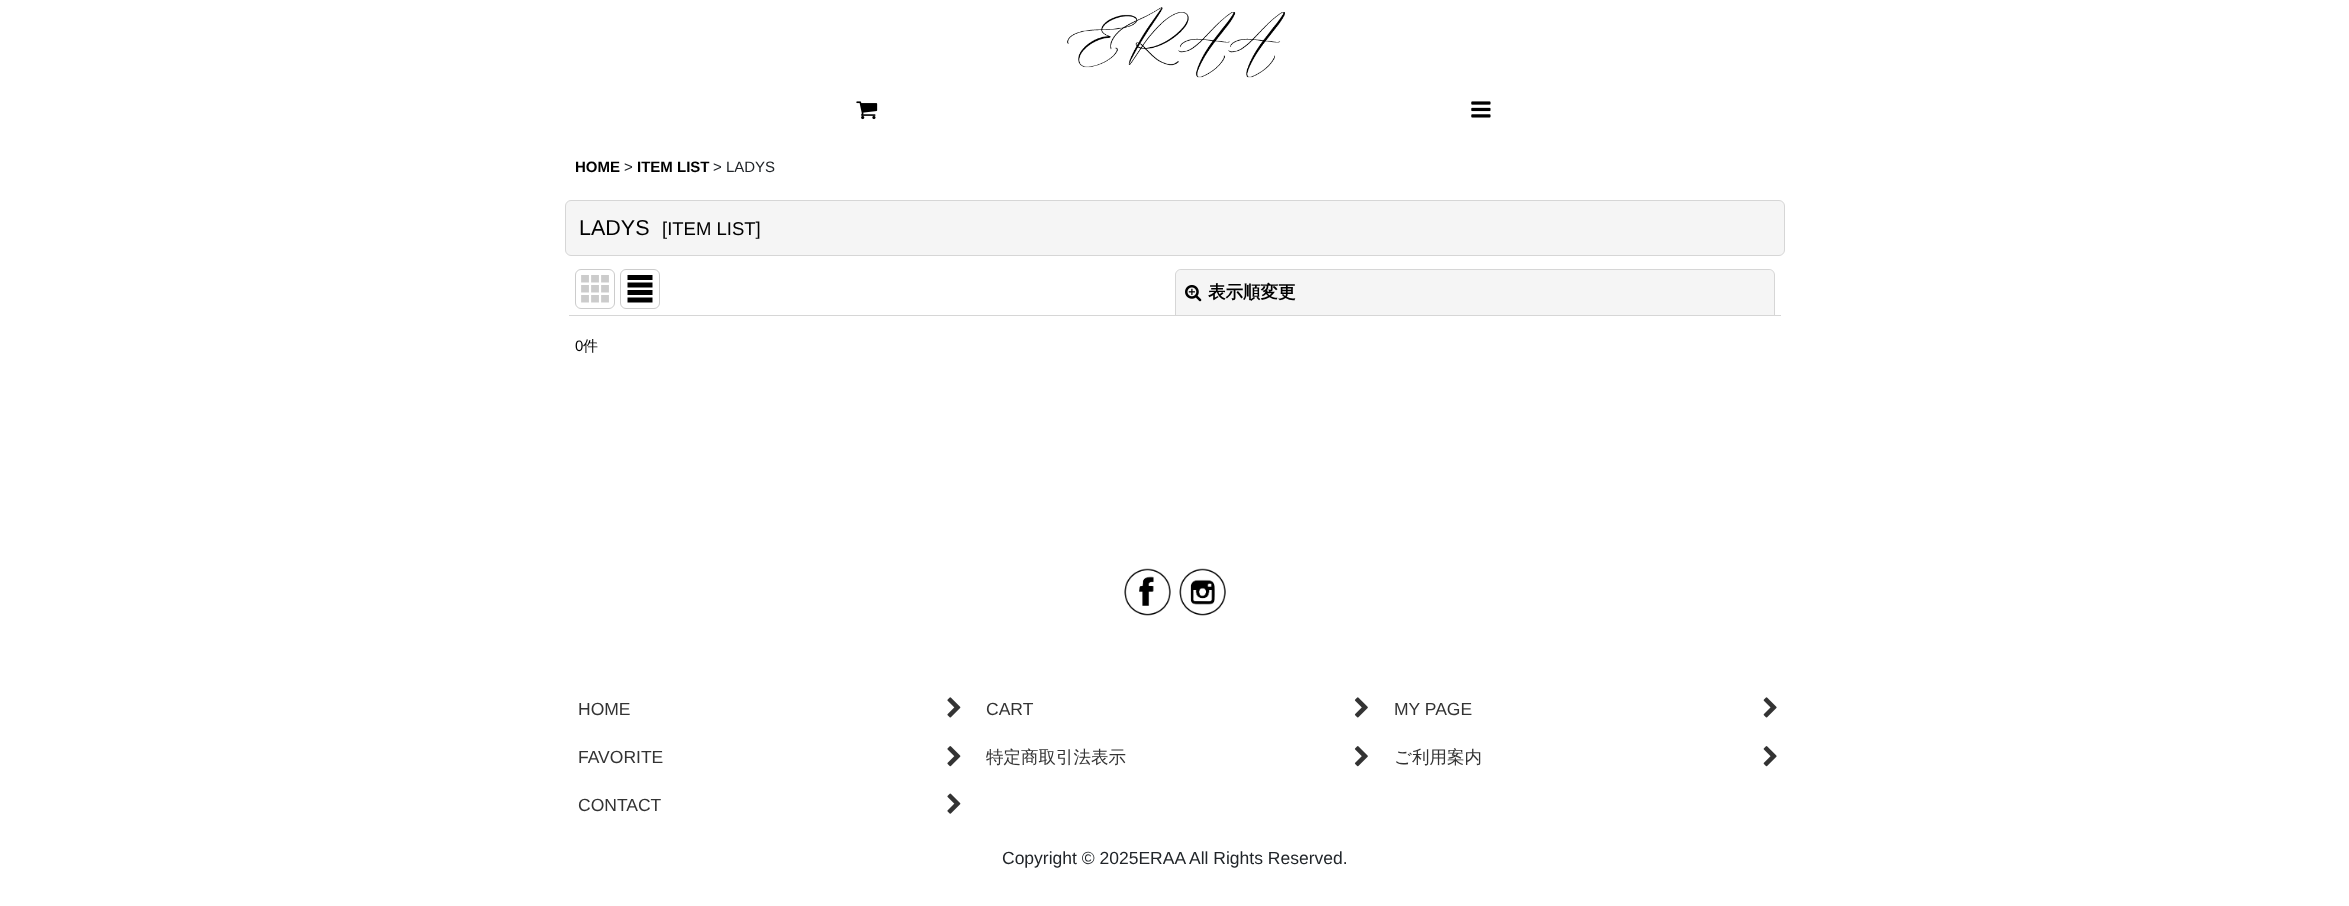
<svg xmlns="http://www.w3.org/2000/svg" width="2349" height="906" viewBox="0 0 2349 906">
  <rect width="100%" height="100%" fill="#ffffff"/>
  <image x="1067" y="7" width="218" height="71" href="img1.png"/>
  <image x="856" y="101" width="22" height="19" href="img2.png"/>
  <image x="1471" y="101" width="20" height="17" href="img3.png"/>
  <text x="575" y="172" font-family="Liberation Sans" font-size="15" font-weight="bold" fill="#000000">HOME</text>
  <text x="624" y="172" font-family="Liberation Sans" font-size="15" fill="#212529">&gt;</text>
  <text x="637" y="172" font-family="Liberation Sans" font-size="15" font-weight="bold" fill="#000000">ITEM LIST</text>
  <text x="713" y="172" font-family="Liberation Sans" font-size="15" fill="#212529">&gt; LADYS</text>
  <rect x="565.5" y="200.5" width="1219" height="55" rx="5.5" fill="#f5f5f5" stroke="#d6d6d6"/>
  <text x="579" y="235" font-family="Liberation Sans" font-size="21.5" fill="#000000">LADYS</text>
  <text x="662" y="235" font-family="Liberation Sans" font-size="18.5" fill="#000000">[ITEM LIST]</text>
  <rect x="569" y="315" width="1212" height="1" fill="#d6d6d6"/>
  <rect x="575.5" y="269.5" width="39" height="39" rx="5.5" fill="none" stroke="#cccccc"/>
  <image x="581" y="275" width="28" height="28" href="img4.png"/>
  <rect x="620.5" y="269.5" width="39" height="39" rx="5.5" fill="none" stroke="#cccccc"/>
  <image x="627" y="275" width="26" height="28" href="img5.png"/>
  <path d="M1181 269H1769C1772.5 269 1775 271.5 1775 275V315H1175V275C1175 271.5 1177.5 269 1181 269Z" fill="#f5f5f5"/>
  <path d="M1181 269H1769C1772 269 1775 272 1775 275V315H1175V275C1175 272 1178 269 1181 269ZM1181 270H1769C1772 270 1774 272 1774 275V315H1176V275C1176 272 1178 270 1181 270Z" fill="#d6d6d6" fill-rule="evenodd"/>
  <image x="1185" y="285" width="17" height="17" href="img6.png"/>
  <text x="1208" y="298" font-family="WenQuanYi Zen Hei" font-size="17.5" font-weight="bold" fill="#000000">表示順変更</text>
  <text x="575" y="351" font-family="Liberation Sans" font-size="15" fill="#000000">0</text>
  <text x="583" y="351" font-family="WenQuanYi Zen Hei" font-size="15" font-weight="500" fill="#000000">件</text>
  <image x="1124" y="568" width="47" height="48" href="img7.png"/>
  <image x="1179" y="568" width="47" height="48" href="img8.png"/>
  <text x="578" y="715" font-family="Liberation Sans" font-size="17.5" fill="#333333">HOME</text>
  <image x="947" y="697" width="14" height="21" href="img9.png"/>
  <text x="986" y="715" font-family="Liberation Sans" font-size="17.5" fill="#333333">CART</text>
  <image x="1354" y="697" width="14" height="21" href="img10.png"/>
  <text x="1394" y="715" font-family="Liberation Sans" font-size="17.5" fill="#333333">MY PAGE</text>
  <image x="1763" y="697" width="14" height="21" href="img11.png"/>
  <text x="578" y="763" font-family="Liberation Sans" font-size="17.5" fill="#333333">FAVORITE</text>
  <image x="947" y="746" width="14" height="21" href="img12.png"/>
  <text x="986" y="763" font-family="WenQuanYi Zen Hei" font-size="17.5" font-weight="500" fill="#333333">特定商取引法表示</text>
  <image x="1354" y="746" width="14" height="21" href="img13.png"/>
  <text x="1394" y="763" font-family="WenQuanYi Zen Hei" font-size="17.5" font-weight="500" fill="#333333">ご利用案内</text>
  <image x="1763" y="746" width="14" height="21" href="img14.png"/>
  <text x="578" y="811" font-family="Liberation Sans" font-size="17.5" fill="#333333">CONTACT</text>
  <image x="947" y="793" width="14" height="21" href="img15.png"/>
  <text x="1002" y="864" font-family="Liberation Sans" font-size="17.5" fill="#212529">Copyright © 2025ERAA</text>
  <text x="1189" y="864" font-family="Liberation Sans" font-size="17.5" fill="#212529">All Rights Reserved.</text>
</svg>
